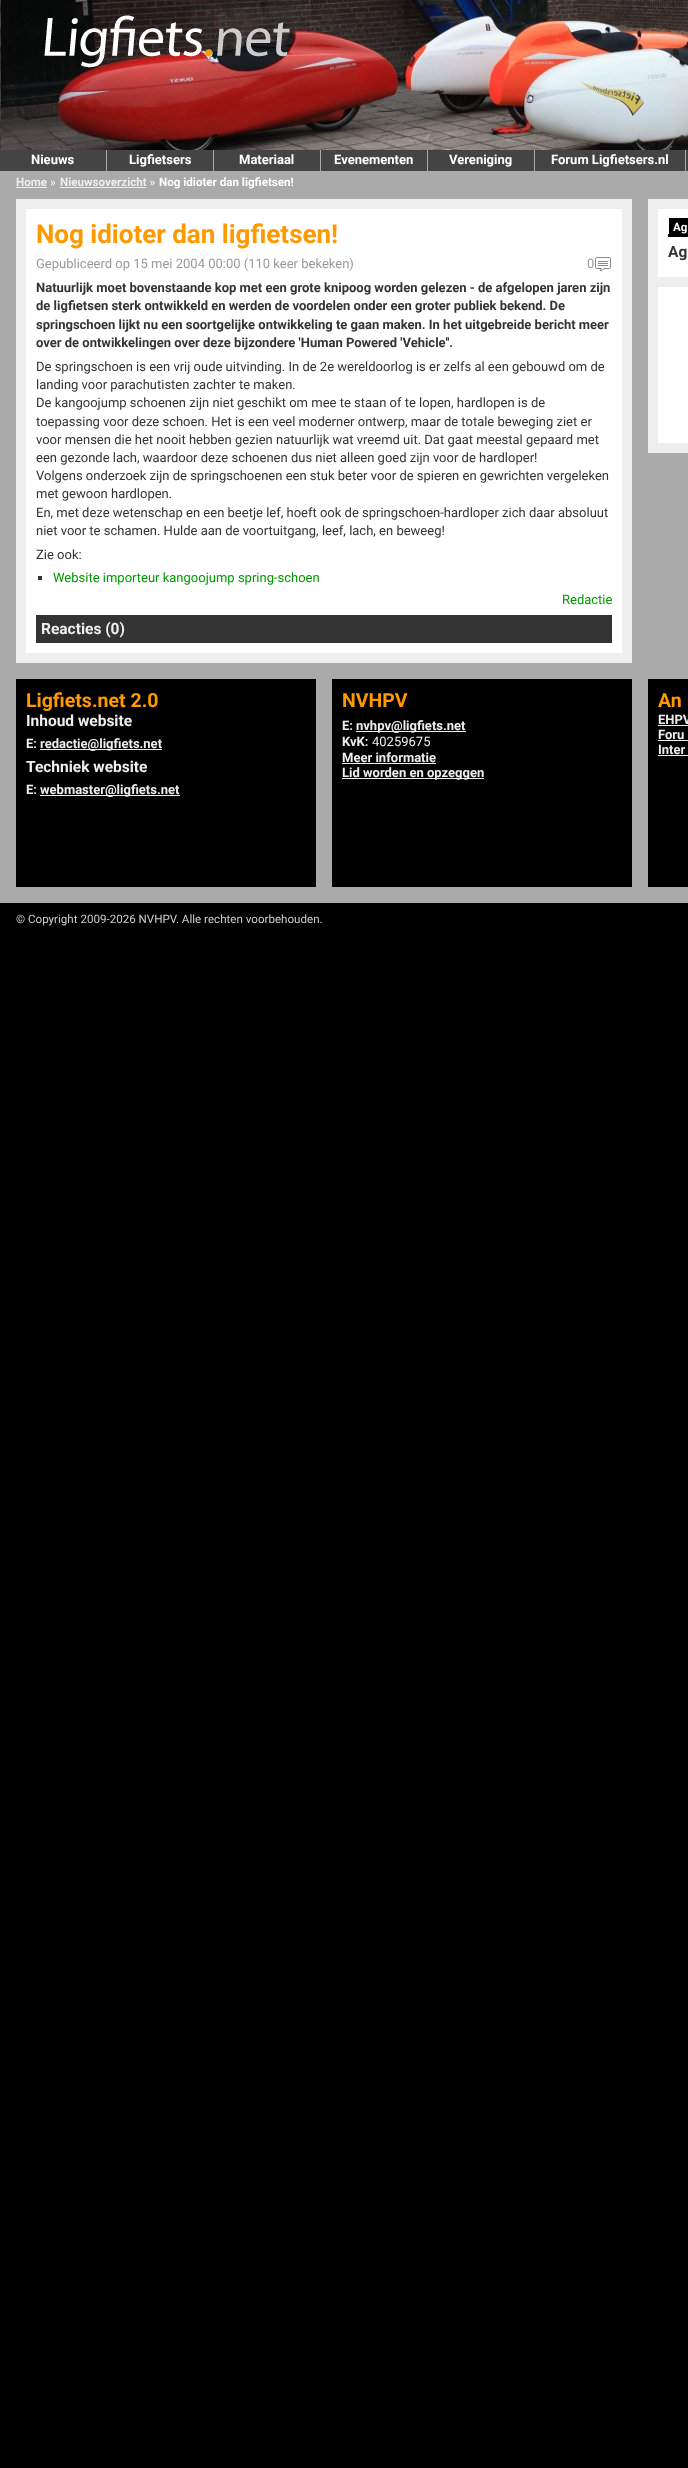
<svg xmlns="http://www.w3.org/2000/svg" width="688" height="2468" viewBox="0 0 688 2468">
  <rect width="100%" height="100%" fill="#000000"/>
  <image x="0" y="0" width="688" height="150" href="img1.png"/>
  <image x="44" y="15" width="246" height="53" href="img2.png"/>
  <rect x="0" y="150" width="688" height="21" fill="#444444"/>
  <rect x="106" y="150" width="1" height="21" fill="#aaaaaa"/>
  <text x="31" y="164" font-family="Roboto" font-size="13" font-weight="bold" fill="#ffffff">Nieuws</text>
  <rect x="213" y="150" width="1" height="21" fill="#aaaaaa"/>
  <text x="129" y="164" font-family="Roboto" font-size="13" font-weight="bold" fill="#ffffff">Ligfietsers</text>
  <rect x="320" y="150" width="1" height="21" fill="#aaaaaa"/>
  <text x="239" y="164" font-family="Roboto" font-size="13" font-weight="bold" fill="#ffffff">Materiaal</text>
  <rect x="427" y="150" width="1" height="21" fill="#aaaaaa"/>
  <text x="334" y="164" font-family="Roboto" font-size="13" font-weight="bold" fill="#ffffff">Evenementen</text>
  <rect x="534" y="150" width="1" height="21" fill="#aaaaaa"/>
  <text x="449" y="164" font-family="Roboto" font-size="13" font-weight="bold" fill="#ffffff">Vereniging</text>
  <rect x="685" y="150" width="1" height="21" fill="#aaaaaa"/>
  <text x="551" y="164" font-family="Roboto" font-size="13" font-weight="bold" fill="#ffffff">Forum Ligfietsers.nl</text>
  <rect x="0" y="171" width="688" height="732" fill="#aaaaaa"/>
  <text x="16" y="186" font-family="Roboto" font-size="11.6" font-weight="bold" fill="#eeeeee">Home »</text>
  <rect x="16" y="187" width="31" height="1" fill="#eeeeee"/>
  <text x="60" y="186" font-family="Roboto" font-size="11.6" font-weight="bold" fill="#eeeeee">Nieuwsoverzicht »</text>
  <rect x="60" y="187" width="86" height="1" fill="#eeeeee"/>
  <text x="159" y="186" font-family="Roboto" font-size="11.6" font-weight="bold" fill="#ffffff">Nog idioter dan ligfietsen!</text>
  <rect x="16" y="199" width="616" height="464" fill="#eeeeee"/>
  <rect x="26" y="209" width="596" height="444" fill="#ffffff"/>
  <text x="36" y="243" font-family="Roboto" font-size="26" font-weight="bold" fill="#ff9900">Nog idioter dan ligfietsen!</text>
  <text x="36" y="268" font-family="Roboto" font-size="13" fill="#999999">Gepubliceerd op 15 mei 2004 00:00 (110 keer bekeken)</text>
  <text x="587" y="268" font-family="Roboto" font-size="13" fill="#999999">0</text>
  <image x="595" y="257" width="16" height="15" href="img3.png"/>
  <text x="36" y="292" font-family="Roboto" font-size="13" font-weight="bold" fill="#333333">Natuurlijk moet bovenstaande kop met een grote knipoog worden gelezen - de afgelopen jaren zijn</text>
  <text x="36" y="310" font-family="Roboto" font-size="13" font-weight="bold" fill="#333333">de ligfietsen sterk ontwikkeld en werden de voordelen onder een groter publiek bekend. De</text>
  <text x="36" y="329" font-family="Roboto" font-size="13" font-weight="bold" fill="#333333">springschoen lijkt nu een soortgelijke ontwikkeling te gaan maken. In het uitgebreide bericht meer</text>
  <text x="36" y="347" font-family="Roboto" font-size="13" font-weight="bold" fill="#333333">over de ontwikkelingen over deze bijzondere 'Human Powered 'Vehicle''.</text>
  <text x="36" y="371" font-family="Roboto" font-size="13" fill="#333333">De springschoen is een vrij oude uitvinding. In de 2e wereldoorlog is er zelfs al een gebouwd om de</text>
  <text x="36" y="389" font-family="Roboto" font-size="13" fill="#333333">landing voor parachutisten zachter te maken.</text>
  <text x="36" y="407" font-family="Roboto" font-size="13" fill="#333333">De kangoojump schoenen zijn niet geschikt om mee te staan of te lopen, hardlopen is de</text>
  <text x="36" y="426" font-family="Roboto" font-size="13" fill="#333333">toepassing voor deze schoen. Het is een veel moderner ontwerp, maar de totale beweging ziet er</text>
  <text x="36" y="444" font-family="Roboto" font-size="13" fill="#333333">voor mensen die het nooit hebben gezien natuurlijk wat vreemd uit. Dat gaat meestal gepaard met</text>
  <text x="36" y="462" font-family="Roboto" font-size="13" fill="#333333">een gezonde lach, waardoor deze schoenen dus niet alleen goed zijn voor de hardloper!</text>
  <text x="36" y="480" font-family="Roboto" font-size="13" fill="#333333">Volgens onderzoek zijn de springschoenen een stuk beter voor de spieren en gewrichten vergeleken</text>
  <text x="36" y="498" font-family="Roboto" font-size="13" fill="#333333">met gewoon hardlopen.</text>
  <text x="36" y="517" font-family="Roboto" font-size="13" fill="#333333">En, met deze wetenschap en een beetje lef, hoeft ook de springschoen-hardloper zich daar absoluut</text>
  <text x="36" y="535" font-family="Roboto" font-size="13" fill="#333333">niet voor te schamen. Hulde aan de voortuitgang, leef, lach, en beweeg!</text>
  <text x="36" y="559" font-family="Roboto" font-size="13" fill="#333333">Zie ook:</text>
  <rect x="38" y="576" width="4" height="4" fill="#333333"/>
  <text x="53" y="582" font-family="Roboto" font-size="13" fill="#009900">Website importeur kangoojump spring-schoen</text>
  <text x="562" y="604" font-family="Roboto" font-size="13" fill="#009900">Redactie</text>
  <rect x="36" y="615" width="576" height="28" fill="#333333"/>
  <text x="41" y="634" font-family="Roboto" font-size="15.5" font-weight="bold" fill="#eeeeee">Reacties (0)</text>
  <rect x="648" y="199" width="40" height="254" fill="#eeeeee"/>
  <rect x="658" y="209" width="30" height="68" fill="#ffffff"/>
  <rect x="668" y="234" width="20" height="3" fill="#000000"/>
  <rect x="669" y="218" width="19" height="16" fill="#000000"/>
  <text x="673" y="231" font-family="Roboto" font-size="11.6" font-weight="bold" fill="#ffffff">Ag</text>
  <text x="668" y="257" font-family="Roboto" font-size="15.5" font-weight="bold" fill="#333333">Ag</text>
  <rect x="658" y="287" width="30" height="156" fill="#ffffff"/>
  <rect x="16" y="679" width="300" height="208" fill="#000000"/>
  <text x="26" y="707" font-family="Roboto" font-size="19.5" font-weight="bold" fill="#ff9900">Ligfiets.net 2.0</text>
  <text x="26" y="726" font-family="Roboto" font-size="15.5" font-weight="bold" fill="#eeeeee">Inhoud website</text>
  <text x="26" y="748" font-family="Roboto" font-size="13" font-weight="bold" fill="#eeeeee">E:</text>
  <rect x="40" y="749" width="122" height="1" fill="#eeeeee"/>
  <text x="40" y="748" font-family="Roboto" font-size="13" font-weight="bold" fill="#eeeeee">redactie@ligfiets.net</text>
  <text x="26" y="772" font-family="Roboto" font-size="15.5" font-weight="bold" fill="#eeeeee">Techniek website</text>
  <text x="26" y="794" font-family="Roboto" font-size="13" font-weight="bold" fill="#eeeeee">E:</text>
  <rect x="40" y="795" width="140" height="1" fill="#eeeeee"/>
  <text x="40" y="794" font-family="Roboto" font-size="13" font-weight="bold" fill="#eeeeee">webmaster@ligfiets.net</text>
  <rect x="332" y="679" width="300" height="208" fill="#000000"/>
  <text x="342" y="707" font-family="Roboto" font-size="19.5" font-weight="bold" fill="#ff9900">NVHPV</text>
  <text x="342" y="730" font-family="Roboto" font-size="13" font-weight="bold" fill="#eeeeee">E:</text>
  <rect x="356" y="731" width="110" height="1" fill="#eeeeee"/>
  <text x="356" y="730" font-family="Roboto" font-size="13" font-weight="bold" fill="#eeeeee">nvhpv@ligfiets.net</text>
  <text x="342" y="746" font-family="Roboto" font-size="13" font-weight="bold" fill="#eeeeee">KvK:</text>
  <text x="372" y="746" font-family="Roboto" font-size="13" fill="#eeeeee">40259675</text>
  <text x="342" y="762" font-family="Roboto" font-size="13" font-weight="bold" fill="#eeeeee">Meer informatie</text>
  <rect x="342" y="763" width="94" height="1" fill="#eeeeee"/>
  <rect x="342" y="778" width="142" height="1" fill="#eeeeee"/>
  <text x="342" y="777" font-family="Roboto" font-size="13" font-weight="bold" fill="#eeeeee">Lid worden en opzeggen</text>
  <rect x="648" y="679" width="40" height="208" fill="#000000"/>
  <text x="658" y="707" font-family="Roboto" font-size="19.5" font-weight="bold" fill="#ff9900">An</text>
  <text x="658" y="724" font-family="Roboto" font-size="13" font-weight="bold" fill="#eeeeee">EHPV</text>
  <rect x="658" y="725" width="30" height="1" fill="#eeeeee"/>
  <text x="658" y="739" font-family="Roboto" font-size="13" font-weight="bold" fill="#eeeeee">Foru</text>
  <rect x="658" y="740" width="30" height="1" fill="#eeeeee"/>
  <text x="658" y="754" font-family="Roboto" font-size="13" font-weight="bold" fill="#eeeeee">Inter</text>
  <rect x="658" y="755" width="30" height="1" fill="#eeeeee"/>
  <text x="16" y="923" font-family="Roboto" font-size="11.6" fill="#cccccc">© Copyright 2009-2026 NVHPV. Alle rechten voorbehouden.</text>
</svg>
